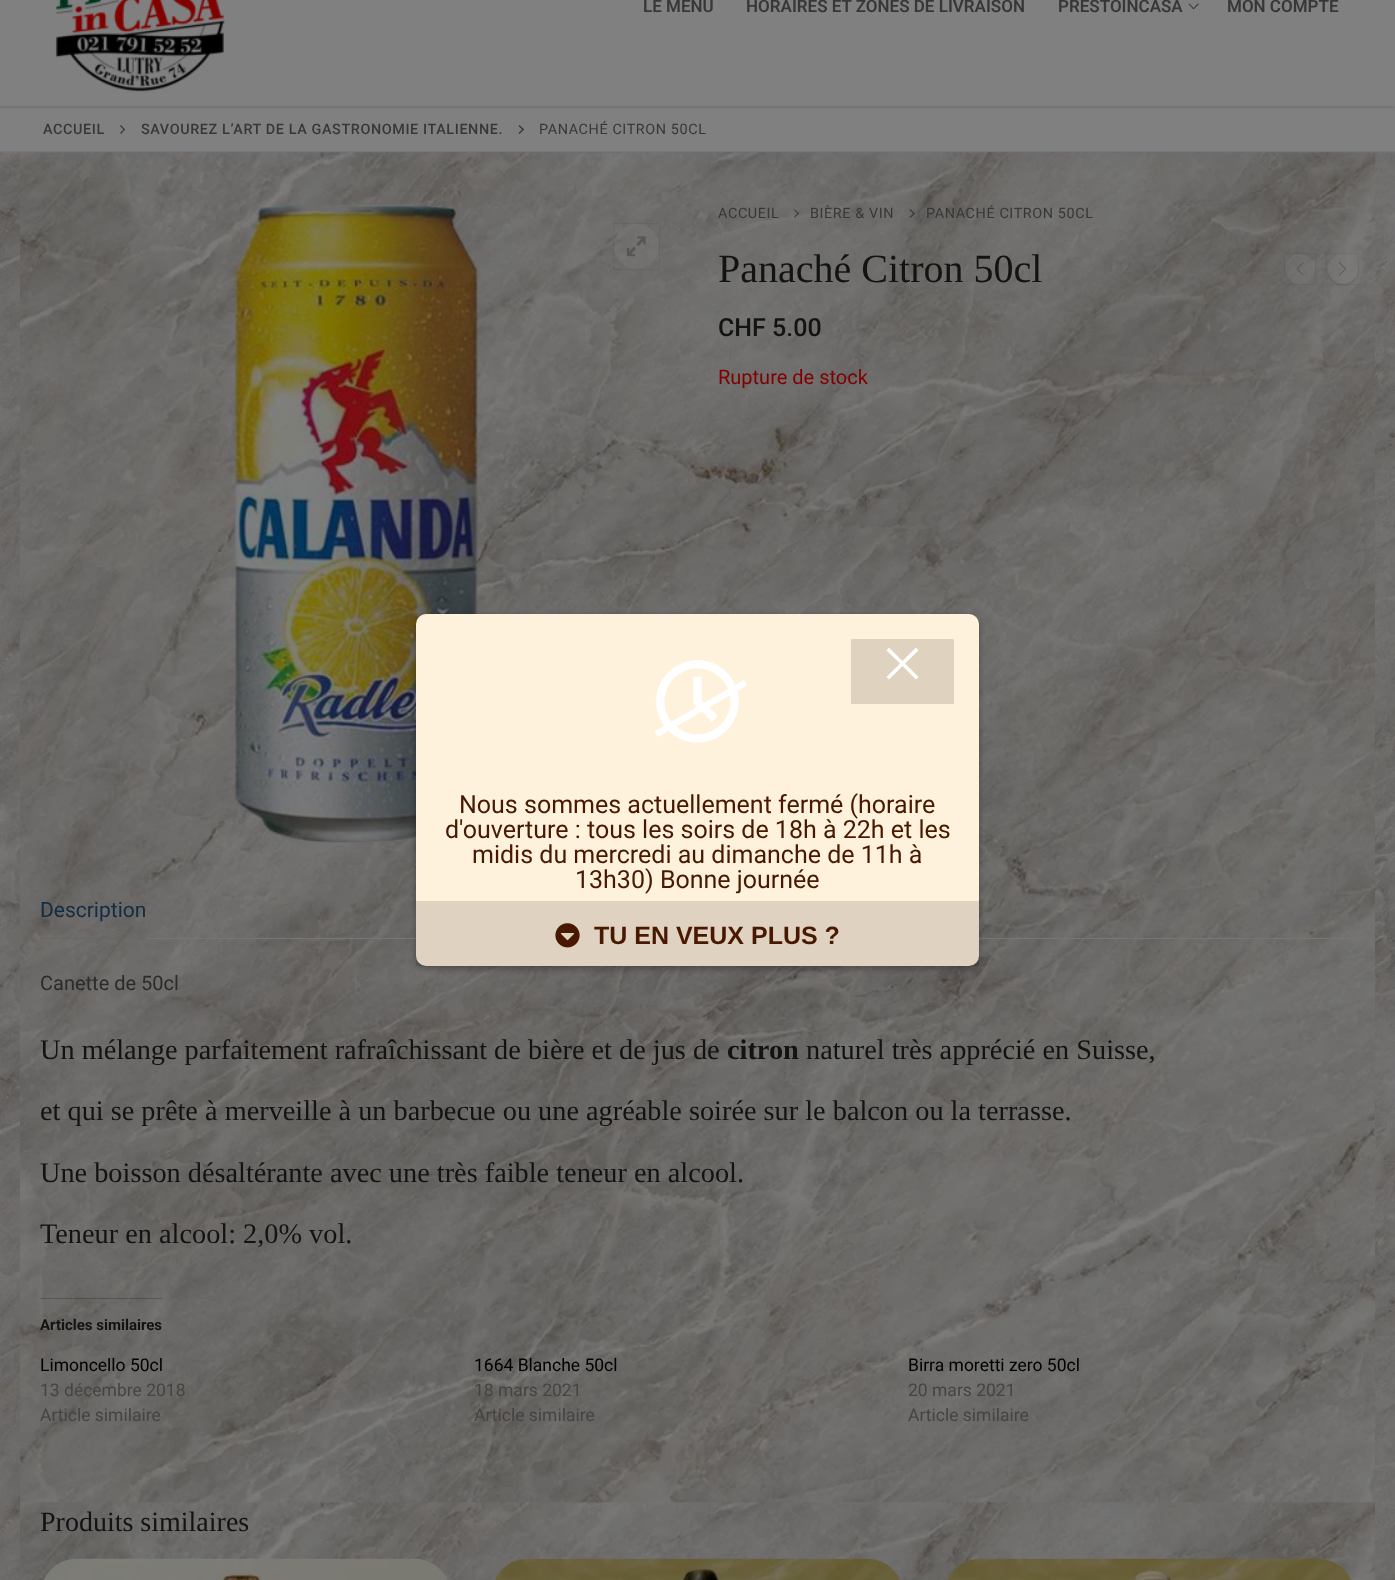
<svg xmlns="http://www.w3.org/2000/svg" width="1395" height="1580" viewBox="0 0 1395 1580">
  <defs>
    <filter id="blur1" x="-50%" y="-200%" width="200%" height="500%"><feGaussianBlur stdDeviation="1"/></filter>
    <clipPath id="clip1"><path d="M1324 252H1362V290H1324ZM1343 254C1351.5 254 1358 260.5 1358 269C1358 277.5 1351.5 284 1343 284C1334.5 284 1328 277.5 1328 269C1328 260.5 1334.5 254 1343 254Z" clip-rule="evenodd"/></clipPath>
    <filter id="blur2" x="-50%" y="-200%" width="200%" height="500%"><feGaussianBlur stdDeviation="3"/></filter>
  </defs>
  <rect width="100%" height="100%" fill="#808080"/>
  <rect x="0" y="-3" width="1395" height="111" fill="#717375" filter="url(#blur1)"/>
  <rect x="0" y="0" width="1395" height="106" fill="#808080"/>
  <image x="55" y="0" width="170" height="92" href="img1.png"/>
  <text x="643" y="12" font-family="Roboto" font-size="17" font-weight="600" fill="#373737">LE MENU</text>
  <text x="746" y="12" font-family="Roboto" font-size="17" font-weight="600" fill="#373737">HORAIRES ET ZONES DE LIVRAISON</text>
  <text x="1058" y="12" font-family="Roboto" font-size="17" font-weight="600" fill="#373737">PRESTOINCASA</text>
  <path d="M1193.5 9.5L1188.5 4L1189.5 3.5L1193.5 8Z" fill="#3a3a3a"/>
  <path d="M1199 4L1193.5 9.5V8L1198 3.5Z" fill="#000000" fill-opacity="0.55"/>
  <text x="1227" y="12" font-family="Roboto" font-size="17" font-weight="600" fill="#373737">MON COMPTE</text>
  <rect x="0" y="151" width="1395" height="1" fill="#757677"/>
  <text x="43" y="134" font-family="Roboto" font-size="14.4" font-weight="500" letter-spacing="0.6" fill="#373737">ACCUEIL</text>
  <path d="M125 129.5L121 134L120 133L124.5 128.5Z" fill="#373737"/>
  <path d="M125 129.5L124.5 130.5L120 126L121 125Z" fill="#373737"/>
  <text x="141" y="134" font-family="Roboto" font-size="14.4" font-weight="500" letter-spacing="0.6" fill="#373737">SAVOUREZ L’ART DE LA GASTRONOMIE ITALIENNE.</text>
  <path d="M524 129.5L519.5 134L518.5 133L523 128.5Z" fill="#373737"/>
  <path d="M524 129.5L523 130.5L518.5 126L519.5 125Z" fill="#373737"/>
  <text x="539" y="134" font-family="Roboto" font-size="14.4" letter-spacing="0.6" fill="#373737">PANACHÉ CITRON 50CL</text>
  <image x="0" y="152" width="1395" height="1428" href="img2.png"/>
  <image x="20" y="152" width="1355" height="1428" href="img3.png"/>
  <image x="235" y="204" width="243" height="639" href="img4.png"/>
  <rect x="613.5" y="223.5" width="46" height="46" fill="none" stroke="#000000" stroke-opacity="0.05"/>
  <circle cx="636.5" cy="246.5" r="22.5" fill="#808080" fill-opacity="0.3"/>
  <image x="626" y="236" width="20" height="21" href="img5.png"/>
  <text x="718" y="218" font-family="Roboto" font-size="14.4" letter-spacing="0.6" fill="#373737">ACCUEIL</text>
  <path d="M799 213.5L794.5 218L794 217L798.5 212.5Z" fill="#3c3c3c"/>
  <path d="M799 213.5L798.5 214.5L794 210L794.5 209Z" fill="#3c3c3c"/>
  <text x="810" y="218" font-family="Roboto" font-size="14.4" letter-spacing="0.6" fill="#373737">BIÈRE &amp; VIN</text>
  <path d="M915 213.5L910.5 218L909.5 217L914 212.5Z" fill="#3c3c3c"/>
  <path d="M915 213.5L914 214.5L909.5 210L910.5 209Z" fill="#3c3c3c"/>
  <text x="926" y="218" font-family="Roboto" font-size="14.4" letter-spacing="0.6" fill="#373737">PANACHÉ CITRON 50CL</text>
  <text x="718" y="282" font-family="Liberation Serif" font-size="40" fill="#131313">Panaché Citron 50cl</text>
  <rect x="1284.5" y="253.5" width="31" height="31" fill="none" stroke="#000000" stroke-opacity="0.05"/>
  <circle cx="1300" cy="269" r="15" fill="#808080" fill-opacity="0.3"/>
  <image x="1296" y="262" width="8" height="14" href="img6.png"/>
  <rect x="1326.5" y="253.5" width="32" height="31" fill="none" stroke="#000000" stroke-opacity="0.05"/>
  <g clip-path="url(#clip1)">
    <rect x="1328" y="256" width="30" height="30" rx="15" fill="#000000" fill-opacity="0.1" filter="url(#blur1)"/>
  </g>
  <circle cx="1343" cy="269" r="15" fill="#808080" fill-opacity="0.3"/>
  <image x="1339" y="262" width="7" height="14" href="img7.png"/>
  <text x="718" y="336" font-family="Roboto" font-size="25" font-weight="500" fill="#131313">CHF 5.00</text>
  <text x="718" y="384" font-family="Roboto" font-size="20" fill="#800000">Rupture de stock</text>
  <rect x="146" y="938" width="1209" height="1" fill="#757677"/>
  <rect x="40" y="938" width="106" height="1" fill="#676768"/>
  <text x="40" y="917" font-family="Roboto" font-size="21" fill="#122c44">Description</text>
  <text x="40" y="990" font-family="Roboto" font-size="20" fill="#2b2b2b">Canette de 50cl</text>
  <text x="40" y="1059" font-family="Liberation Serif" font-size="28.3" fill="#131313">Un mélange parfaitement rafraîchissant de bière et de jus de</text>
  <text x="727" y="1059" font-family="Liberation Serif" font-size="28.3" font-weight="bold" fill="#131313">citron</text>
  <text x="806" y="1059" font-family="Liberation Serif" font-size="28.3" fill="#131313">naturel très apprécié en Suisse,</text>
  <text x="40" y="1120" font-family="Liberation Serif" font-size="28.3" fill="#131313">et qui se prête à merveille à un barbecue ou une agréable soirée sur le balcon ou la terrasse.</text>
  <text x="40" y="1182" font-family="Liberation Serif" font-size="28.3" fill="#131313">Une boisson désaltérante avec une très faible teneur en alcool.</text>
  <text x="40" y="1243" font-family="Liberation Serif" font-size="28.3" fill="#131313">Teneur en alcool: 2,0% vol.</text>
  <rect x="40" y="1298" width="123" height="1" fill="#000000" fill-opacity="0.2"/>
  <text x="40" y="1330" font-family="Roboto" font-size="15" font-weight="bold" fill="#131313">Articles similaires</text>
  <text x="40" y="1371" font-family="Roboto" font-size="17.5" fill="#000000">Limoncello 50cl</text>
  <text x="40" y="1396" font-family="Roboto" font-size="17.5" fill="#454443">13 décembre 2018</text>
  <text x="40" y="1421" font-family="Roboto" font-size="17.5" fill="#454443">Article similaire</text>
  <text x="474" y="1371" font-family="Roboto" font-size="17.5" fill="#000000">1664 Blanche 50cl</text>
  <text x="474" y="1396" font-family="Roboto" font-size="17.5" fill="#454443">18 mars 2021</text>
  <text x="474" y="1421" font-family="Roboto" font-size="17.5" fill="#454443">Article similaire</text>
  <text x="908" y="1371" font-family="Roboto" font-size="17.5" fill="#000000">Birra moretti zero 50cl</text>
  <text x="908" y="1396" font-family="Roboto" font-size="17.5" fill="#454443">20 mars 2021</text>
  <text x="908" y="1421" font-family="Roboto" font-size="17.5" fill="#454443">Article similaire</text>
  <text x="40" y="1531" font-family="Liberation Serif" font-size="28" fill="#131313">Produits similaires</text>
  <image x="44" y="1558" width="404" height="22" href="img8.png"/>
  <image x="495" y="1558" width="405" height="22" href="img9.png"/>
  <image x="947" y="1558" width="404" height="22" href="img10.png"/>
  <rect x="416" y="616" width="563" height="353" rx="10" fill="#000000" fill-opacity="0.3" filter="url(#blur2)"/>
  <rect x="416" y="614" width="563" height="352" rx="10" fill="#fff2dd"/>
  <rect x="851" y="639" width="103" height="65" rx="1" fill="#dfd3c0"/>
  <path d="M902.5 661L889 647.5L886.5 650.5L900 663.5L886.5 677L889 679.5L902.5 666L916 679.5L918.5 677L905 663.5L918.5 650.5L916 647.5Z" fill="#ffffff"/>
  <image x="654" y="660" width="93" height="83" href="img11.png"/>
  <text x="459" y="813" font-family="Roboto" font-size="25" fill="#491800">Nous sommes actuellement fermé (horaire</text>
  <text x="445" y="838" font-family="Roboto" font-size="25" fill="#491800">d'ouverture : tous les soirs de 18h à 22h et les</text>
  <text x="472" y="863" font-family="Roboto" font-size="25" fill="#491800">midis du mercredi au dimanche de 11h à</text>
  <text x="575" y="888" font-family="Roboto" font-size="25" fill="#491800">13h30) Bonne journée</text>
  <rect x="416" y="901" width="563" height="65" fill="#0a0000" fill-opacity="0.13"/>
  <image x="555" y="923" width="25" height="25" href="img12.png"/>
  <text x="594" y="944" font-family="Liberation Sans" font-size="25" font-weight="bold" fill="#491800">TU EN VEUX PLUS ?</text>
</svg>
